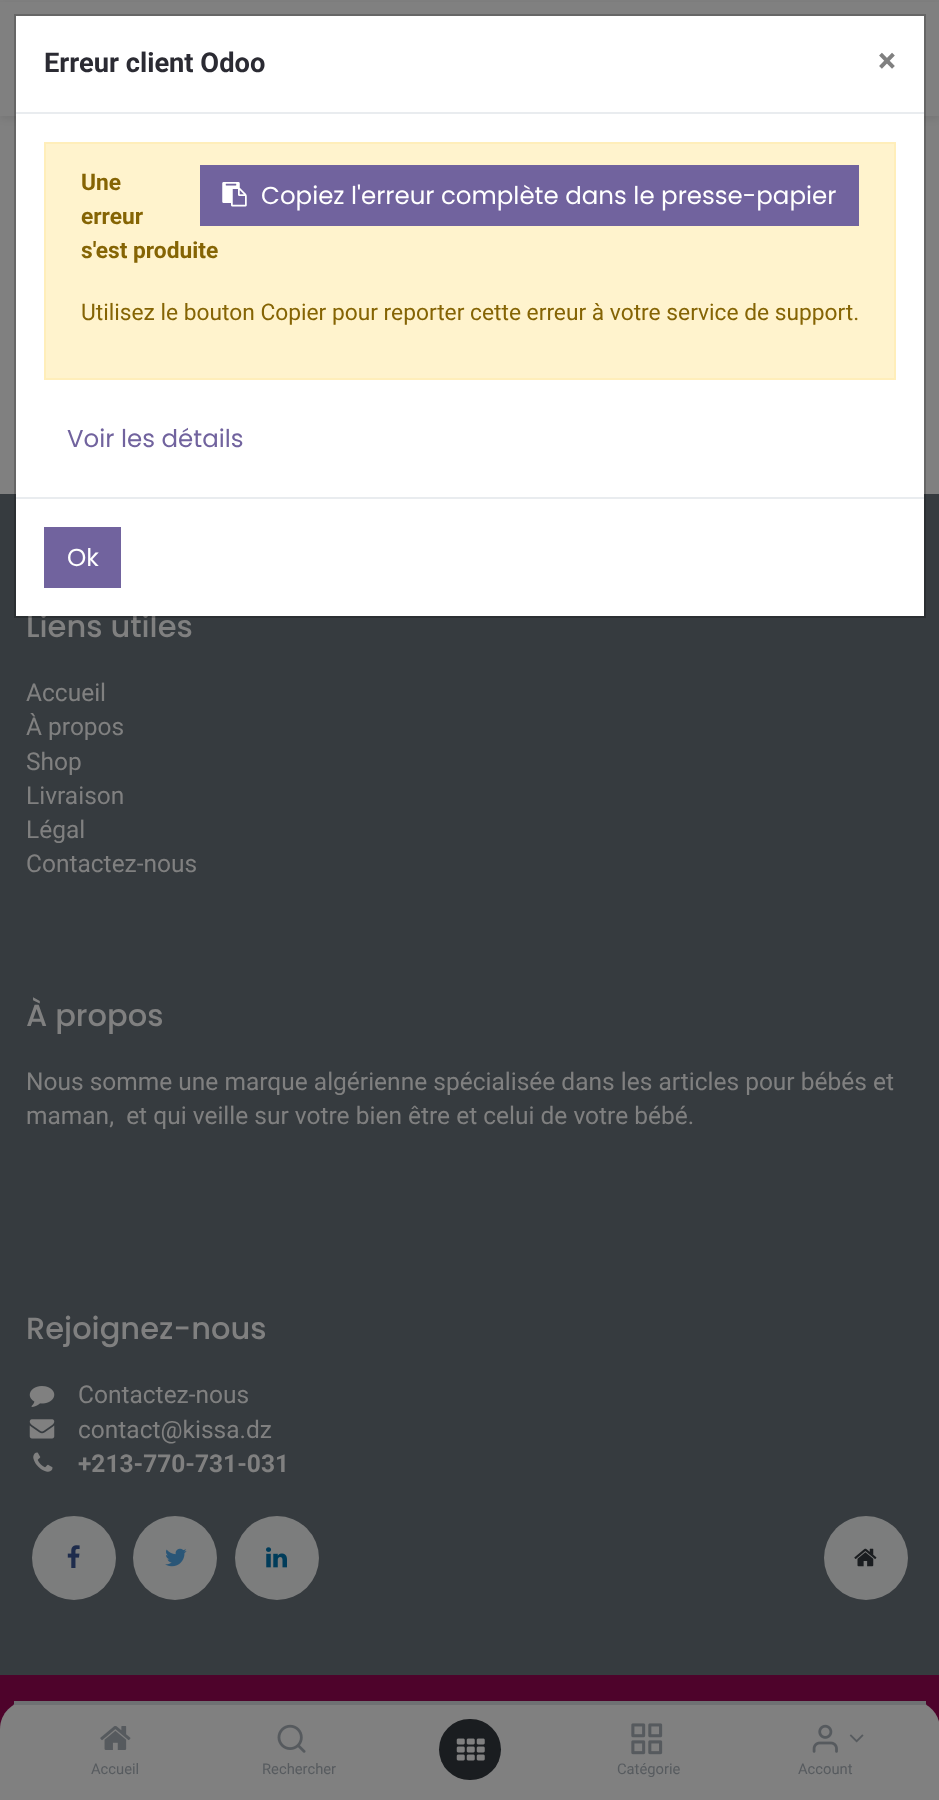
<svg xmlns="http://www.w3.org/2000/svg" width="939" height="1800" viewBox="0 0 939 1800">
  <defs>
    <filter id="blur1" x="-50%" y="-200%" width="200%" height="500%"><feGaussianBlur stdDeviation="3.5"/></filter>
  </defs>
  <rect width="100%" height="100%" fill="#808080"/>
  <rect x="0" y="4" width="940" height="115" fill="#000000" fill-opacity="0.08" filter="url(#blur1)"/>
  <rect x="0" y="2" width="939" height="114" fill="#808080"/>
  <rect x="0" y="494" width="939" height="1181" fill="#363b3f"/>
  <text x="26" y="637" font-family="Poppins" font-size="30.5" font-weight="500" fill="#808080">Liens utiles</text>
  <rect x="16" y="16" width="908" height="600" fill="#ffffff"/>
  <rect x="15" y="15" width="910" height="602" fill="none" stroke="#000000" stroke-opacity="0.2" stroke-width="2"/>
  <rect x="16" y="112" width="908" height="2" fill="#e9ecef"/>
  <text x="44" y="72" font-family="Roboto" font-size="27.25" font-weight="bold" fill="#2b2b33">Erreur client Odoo</text>
  <text x="878" y="72" font-family="Roboto" font-size="34" font-weight="bold" fill="#808080">×</text>
  <rect x="45" y="143" width="850" height="236" fill="#fff3cd" stroke="#ffeeba" stroke-width="2"/>
  <text x="81" y="190" font-family="Roboto" font-size="22.75" font-weight="bold" fill="#856404">Une</text>
  <text x="81" y="224" font-family="Roboto" font-size="22.75" font-weight="bold" fill="#856404">erreur</text>
  <text x="81" y="258" font-family="Roboto" font-size="22.75" font-weight="bold" fill="#856404">s'est produite</text>
  <rect x="200" y="165" width="659" height="61" fill="#71639e"/>
  <image x="222" y="182" width="25" height="25" href="img1.png"/>
  <text x="261" y="204" font-family="Poppins" font-size="24.5" fill="#ffffff">Copiez l'erreur complète dans le presse-papier</text>
  <text x="81" y="320" font-family="Roboto" font-size="22.75" fill="#856404">Utilisez le bouton Copier pour reporter cette erreur à votre service de support.</text>
  <text x="67" y="447" font-family="Poppins" font-size="24.5" fill="#71639e">Voir les détails</text>
  <rect x="16" y="497" width="908" height="2" fill="#e9ecef"/>
  <rect x="44" y="527" width="77" height="61" fill="#71639e"/>
  <text x="67" y="566" font-family="Poppins" font-size="24.5" fill="#ffffff">Ok</text>
  <text x="26" y="701" font-family="Roboto" font-size="24.5" fill="#808080">Accueil</text>
  <text x="26" y="735" font-family="Roboto" font-size="24.5" fill="#808080">À propos</text>
  <text x="26" y="770" font-family="Roboto" font-size="24.5" fill="#808080">Shop</text>
  <text x="26" y="804" font-family="Roboto" font-size="24.5" fill="#808080">Livraison</text>
  <text x="26" y="838" font-family="Roboto" font-size="24.5" fill="#808080">Légal</text>
  <text x="26" y="872" font-family="Roboto" font-size="24.5" fill="#808080">Contactez-nous</text>
  <text x="26" y="1026" font-family="Poppins" font-size="30.5" font-weight="500" fill="#808080">À propos</text>
  <text x="26" y="1090" font-family="Roboto" font-size="24.5" fill="#808080">Nous somme une marque algérienne spécialisée dans les articles pour bébés et</text>
  <text x="26" y="1124" font-family="Roboto" font-size="24.5" fill="#808080" xml:space="preserve">maman,  et qui veille sur votre bien être et celui de votre bébé.</text>
  <text x="26" y="1339" font-family="Poppins" font-size="30.5" font-weight="500" fill="#808080">Rejoignez-nous</text>
  <image x="29" y="1386" width="26" height="21" href="img2.png"/>
  <text x="78" y="1403" font-family="Roboto" font-size="24.5" fill="#808080">Contactez-nous</text>
  <image x="29" y="1419" width="26" height="20" href="img3.png"/>
  <text x="78" y="1438" font-family="Roboto" font-size="24.5" fill="#808080">contact@kissa.dz</text>
  <image x="33" y="1452" width="20" height="20" href="img4.png"/>
  <text x="78" y="1472" font-family="Roboto" font-size="24.5" font-weight="bold" fill="#808080">+213-770-731-031</text>
  <circle cx="74" cy="1558" r="42" fill="#7c7d7d"/>
  <image x="67" y="1545" width="13" height="23" href="img5.png"/>
  <circle cx="175" cy="1558" r="42" fill="#7c7d7d"/>
  <image x="165" y="1548" width="22" height="19" href="img6.png"/>
  <circle cx="277" cy="1558" r="42" fill="#7c7d7d"/>
  <image x="266" y="1547" width="21" height="21" href="img7.png"/>
  <circle cx="866" cy="1558" r="42" fill="#7c7d7d"/>
  <image x="854" y="1548" width="23" height="19" href="img8.png"/>
  <rect x="0" y="1675" width="939" height="54" fill="#4e032b"/>
  <path d="M28 1701H912C927.5 1701 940 1713.5 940 1729V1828H0V1729C0 1713.5 12.5 1701 28 1701Z" fill="#808080"/>
  <rect x="14" y="1701" width="912" height="4" fill="#6f7173"/>
  <image x="100" y="1726" width="31" height="24" href="img9.png"/>
  <text x="91" y="1774" font-family="Roboto" font-size="14.75" fill="#575b5f">Accueil</text>
  <image x="277" y="1724" width="29" height="29" href="img10.png"/>
  <text x="262" y="1774" font-family="Roboto" font-size="14.75" fill="#575b5f">Rechercher</text>
  <rect x="439" y="1719" width="62" height="61" rx="30.5" fill="#1a1d20"/>
  <image x="456" y="1738" width="29" height="23" href="img11.png"/>
  <image x="631" y="1723" width="32" height="32" href="img12.png"/>
  <text x="617" y="1774" font-family="Roboto" font-size="14.75" fill="#575b5f">Catégorie</text>
  <image x="812" y="1724" width="26" height="29" href="img13.png"/>
  <image x="849" y="1734" width="15" height="9" href="img14.png"/>
  <text x="798" y="1774" font-family="Roboto" font-size="14.75" fill="#575b5f">Account</text>
</svg>
